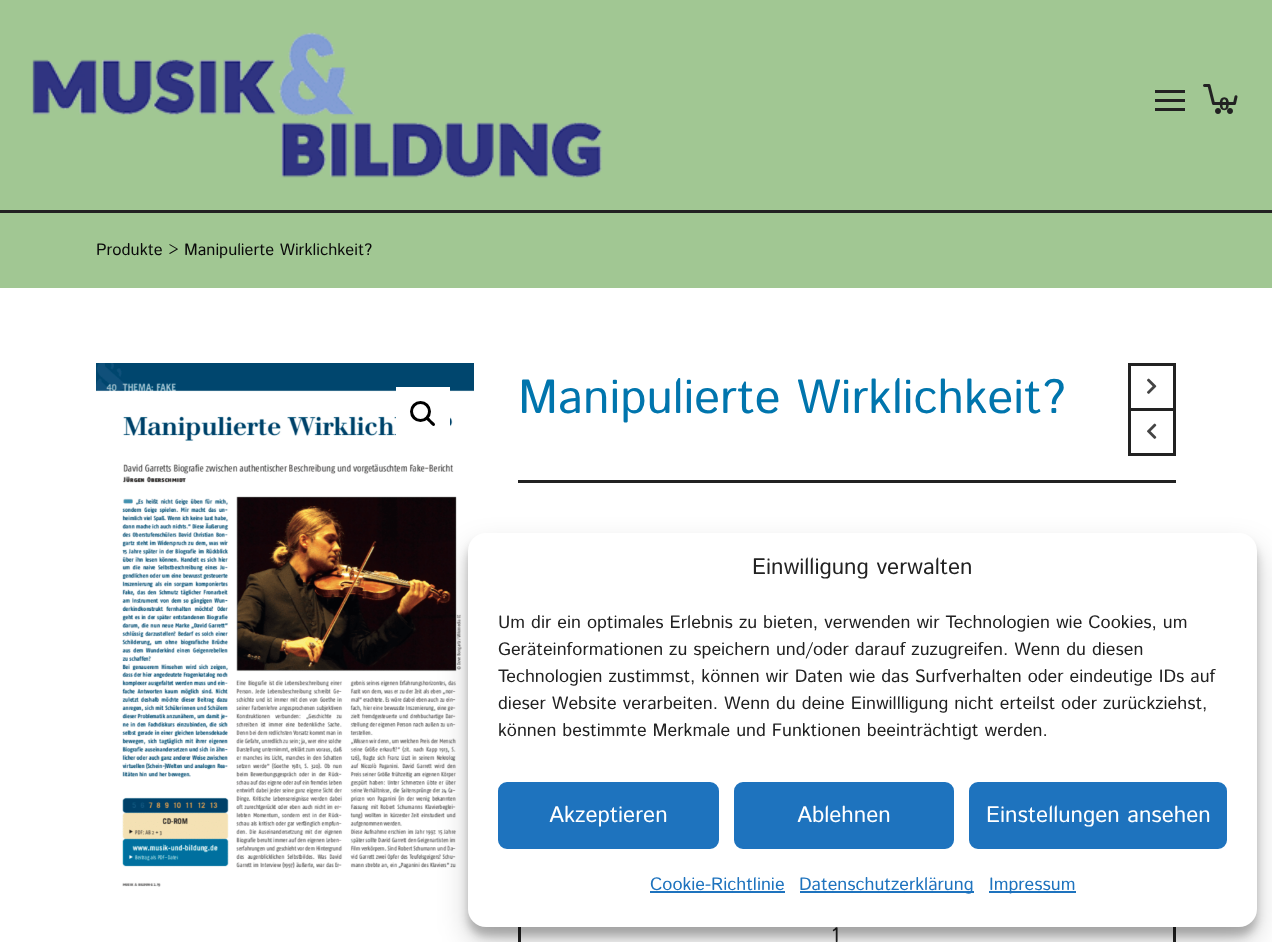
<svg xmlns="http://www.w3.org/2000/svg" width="1272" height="942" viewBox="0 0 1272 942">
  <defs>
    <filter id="blur1" x="-50%" y="-200%" width="200%" height="500%"><feGaussianBlur stdDeviation="4.5"/></filter>
    <filter id="blur2" x="-50%" y="-200%" width="200%" height="500%"><feGaussianBlur stdDeviation="15"/></filter>
  </defs>
  <rect width="100%" height="100%" fill="#ffffff"/>
  <rect x="0" y="0" width="1272" height="210" fill="#a1c793"/>
  <rect x="0" y="210" width="1272" height="3" fill="#222222"/>
  <image x="32" y="32" width="570" height="146" href="img1.png"/>
  <rect x="1155" y="99" width="30" height="3" fill="#222222"/>
  <rect x="1155" y="90" width="30" height="3" fill="#222222"/>
  <rect x="1155" y="108" width="30" height="3" fill="#222222"/>
  <image x="1203" y="84" width="35" height="30" href="img2.png"/>
  <text x="1219" y="110" font-family="Istok Web" font-size="18" font-weight="bold" fill="#222222">0</text>
  <rect x="0" y="213" width="1272" height="75" fill="#a1c793"/>
  <text x="96" y="255" font-family="Istok Web" font-size="16.5" fill="#0a0a0a">Produkte &gt; Manipulierte Wirklichkeit?</text>
  <image x="96" y="363" width="378" height="524" href="img3.png"/>
  <rect x="396" y="387" width="54" height="49" fill="#ffffff"/>
  <circle cx="420.5" cy="411.5" r="9" fill="none" stroke="#000000" stroke-width="3"/>
  <path d="M426.5 417.5C428 415.5 430.5 419.5 431.5 420.5C432.5 421.5 436.5 424 434.5 425.5C433 427.5 430.5 423.5 429.5 422.5C428.5 421.5 424.5 419 426.5 417.5Z" fill="#000000"/>
  <rect x="518" y="480" width="658" height="3" fill="#222222"/>
  <text x="518" y="413" font-family="Istok Web" font-size="48" fill="#0075ad">Manipulierte Wirklichkeit?</text>
  <rect x="1129.5" y="364.5" width="45" height="45" fill="none" stroke="#222222" stroke-width="3"/>
  <image x="1147" y="378" width="10" height="16" href="img4.png"/>
  <rect x="1129.5" y="409.5" width="45" height="45" fill="none" stroke="#222222" stroke-width="3"/>
  <image x="1147" y="423" width="10" height="16" href="img5.png"/>
  <rect x="519.5" y="892.5" width="655" height="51" fill="none" stroke="#222222" stroke-width="3"/>
  <text x="831" y="942" font-family="Istok Web" font-size="21" fill="#222222">1</text>
  <rect x="468" y="542" width="789" height="394" rx="18" fill="#000000" fill-opacity="0.23" filter="url(#blur1)"/>
  <rect x="468" y="548" width="789" height="394" rx="18" fill="#000000" fill-opacity="0.19" filter="url(#blur2)"/>
  <rect x="468" y="533" width="789" height="394" rx="18" fill="#ffffff"/>
  <text x="752" y="574" font-family="Istok Web" font-size="22.5" fill="#222222">Einwilligung verwalten</text>
  <text x="498" y="628" font-family="Istok Web" font-size="18" fill="#222222">Um dir ein optimales Erlebnis zu bieten, verwenden wir Technologien wie Cookies, um</text>
  <text x="498" y="655" font-family="Istok Web" font-size="18" fill="#222222">Geräteinformationen zu speichern und/oder darauf zuzugreifen. Wenn du diesen</text>
  <text x="498" y="682" font-family="Istok Web" font-size="18" fill="#222222">Technologien zustimmst, können wir Daten wie das Surfverhalten oder eindeutige IDs auf</text>
  <text x="498" y="709" font-family="Istok Web" font-size="18" fill="#222222">dieser Website verarbeiten. Wenn du deine Einwillligung nicht erteilst oder zurückziehst,</text>
  <text x="498" y="736" font-family="Istok Web" font-size="18" fill="#222222">können bestimmte Merkmale und Funktionen beeinträchtigt werden.</text>
  <rect x="499" y="783" width="219" height="65" rx="8" fill="#1e73be" stroke="#1e73be" stroke-width="2"/>
  <text x="549" y="822" font-family="Istok Web" font-size="22.5" fill="#ffffff">Akzeptieren</text>
  <rect x="735" y="783" width="218" height="65" rx="8" fill="#1e73be" stroke="#1e73be" stroke-width="2"/>
  <text x="797" y="822" font-family="Istok Web" font-size="22.5" fill="#ffffff">Ablehnen</text>
  <rect x="970" y="783" width="256" height="65" rx="8" fill="#1e73be" stroke="#1e73be" stroke-width="2"/>
  <text x="986" y="822" font-family="Istok Web" font-size="22.5" fill="#ffffff">Einstellungen ansehen</text>
  <text x="650" y="890" font-family="Istok Web" font-size="18" fill="#1e73be">Cookie-Richtlinie</text>
  <rect x="650" y="891" width="135" height="2" fill="#1e73be"/>
  <rect x="800" y="891" width="174" height="2" fill="#1e73be"/>
  <text x="799" y="890" font-family="Istok Web" font-size="18" fill="#1e73be">Datenschutzerklärung</text>
  <rect x="989" y="891" width="87" height="2" fill="#1e73be"/>
  <text x="989" y="890" font-family="Istok Web" font-size="18" fill="#1e73be">Impressum</text>
</svg>
